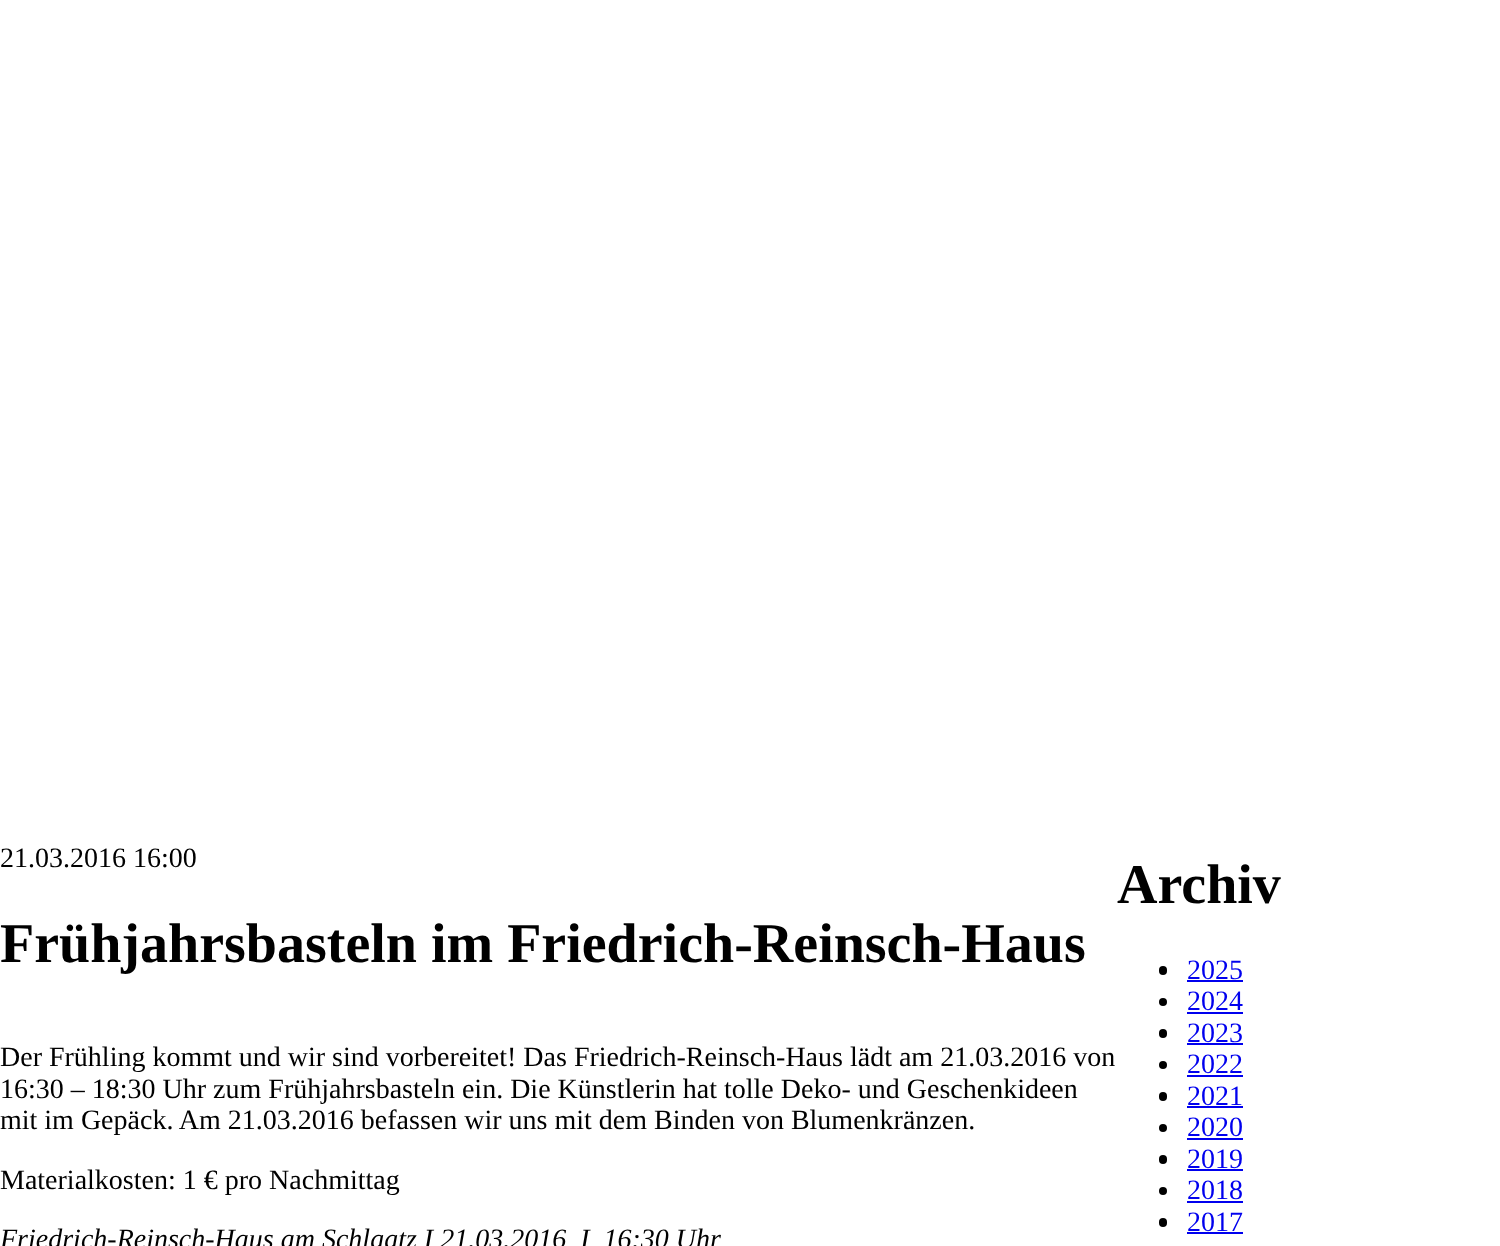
<svg xmlns="http://www.w3.org/2000/svg" width="1500" height="1246" viewBox="0 0 1500 1246">
  <rect width="100%" height="100%" fill="#ffffff"/>
  <text x="0" y="867" font-family="Liberation Serif" font-size="28" fill="#000000">21.03.2016 16:00</text>
  <text x="0" y="962" font-family="Liberation Serif" font-size="56" font-weight="bold" fill="#000000">Frühjahrsbasteln im Friedrich-Reinsch-Haus</text>
  <text x="0" y="1066" font-family="Liberation Serif" font-size="28" fill="#000000">Der Frühling kommt und wir sind vorbereitet! Das Friedrich-Reinsch-Haus lädt am 21.03.2016 von</text>
  <text x="0" y="1098" font-family="Liberation Serif" font-size="28" fill="#000000">16:30 – 18:30 Uhr zum Frühjahrsbasteln ein. Die Künstlerin hat tolle Deko- und Geschenkideen</text>
  <text x="0" y="1129" font-family="Liberation Serif" font-size="28" fill="#000000">mit im Gepäck. Am 21.03.2016 befassen wir uns mit dem Binden von Blumenkränzen.</text>
  <text x="0" y="1189" font-family="Liberation Serif" font-size="28" fill="#000000">Materialkosten: 1 € pro Nachmittag</text>
  <text x="0" y="1248" font-family="Liberation Serif" font-size="28" font-style="italic" fill="#000000" xml:space="preserve">Friedrich-Reinsch-Haus am Schlaatz Ι 21.03.2016  Ι  16:30 Uhr</text>
  <text x="1117" y="903" font-family="Liberation Serif" font-size="56" font-weight="bold" fill="#000000">Archiv</text>
  <rect x="1159" y="966" width="8" height="9" rx="4" fill="#000000"/>
  <text x="1187" y="979" font-family="Liberation Serif" font-size="28" fill="#0000ee">2025</text>
  <rect x="1187" y="980" width="56" height="2" fill="#0000ee"/>
  <circle cx="1163" cy="1002" r="4" fill="#000000"/>
  <text x="1187" y="1010" font-family="Liberation Serif" font-size="28" fill="#0000ee">2024</text>
  <rect x="1187" y="1012" width="56" height="2" fill="#0000ee"/>
  <rect x="1159" y="1029" width="8" height="9" rx="4" fill="#000000"/>
  <text x="1187" y="1042" font-family="Liberation Serif" font-size="28" fill="#0000ee">2023</text>
  <rect x="1187" y="1043" width="56" height="2" fill="#0000ee"/>
  <circle cx="1163" cy="1065" r="4" fill="#000000"/>
  <text x="1187" y="1073" font-family="Liberation Serif" font-size="28" fill="#0000ee">2022</text>
  <rect x="1187" y="1075" width="56" height="2" fill="#0000ee"/>
  <rect x="1159" y="1092" width="8" height="9" rx="4" fill="#000000"/>
  <text x="1187" y="1105" font-family="Liberation Serif" font-size="28" fill="#0000ee">2021</text>
  <rect x="1187" y="1106" width="56" height="2" fill="#0000ee"/>
  <circle cx="1163" cy="1128" r="4" fill="#000000"/>
  <text x="1187" y="1136" font-family="Liberation Serif" font-size="28" fill="#0000ee">2020</text>
  <rect x="1187" y="1138" width="56" height="2" fill="#0000ee"/>
  <rect x="1159" y="1155" width="8" height="9" rx="4" fill="#000000"/>
  <text x="1187" y="1168" font-family="Liberation Serif" font-size="28" fill="#0000ee">2019</text>
  <rect x="1187" y="1169" width="56" height="2" fill="#0000ee"/>
  <circle cx="1163" cy="1191" r="4" fill="#000000"/>
  <text x="1187" y="1199" font-family="Liberation Serif" font-size="28" fill="#0000ee">2018</text>
  <rect x="1187" y="1201" width="56" height="2" fill="#0000ee"/>
  <rect x="1159" y="1218" width="8" height="9" rx="4" fill="#000000"/>
  <text x="1187" y="1231" font-family="Liberation Serif" font-size="28" fill="#0000ee">2017</text>
  <rect x="1187" y="1232" width="56" height="2" fill="#0000ee"/>
</svg>
